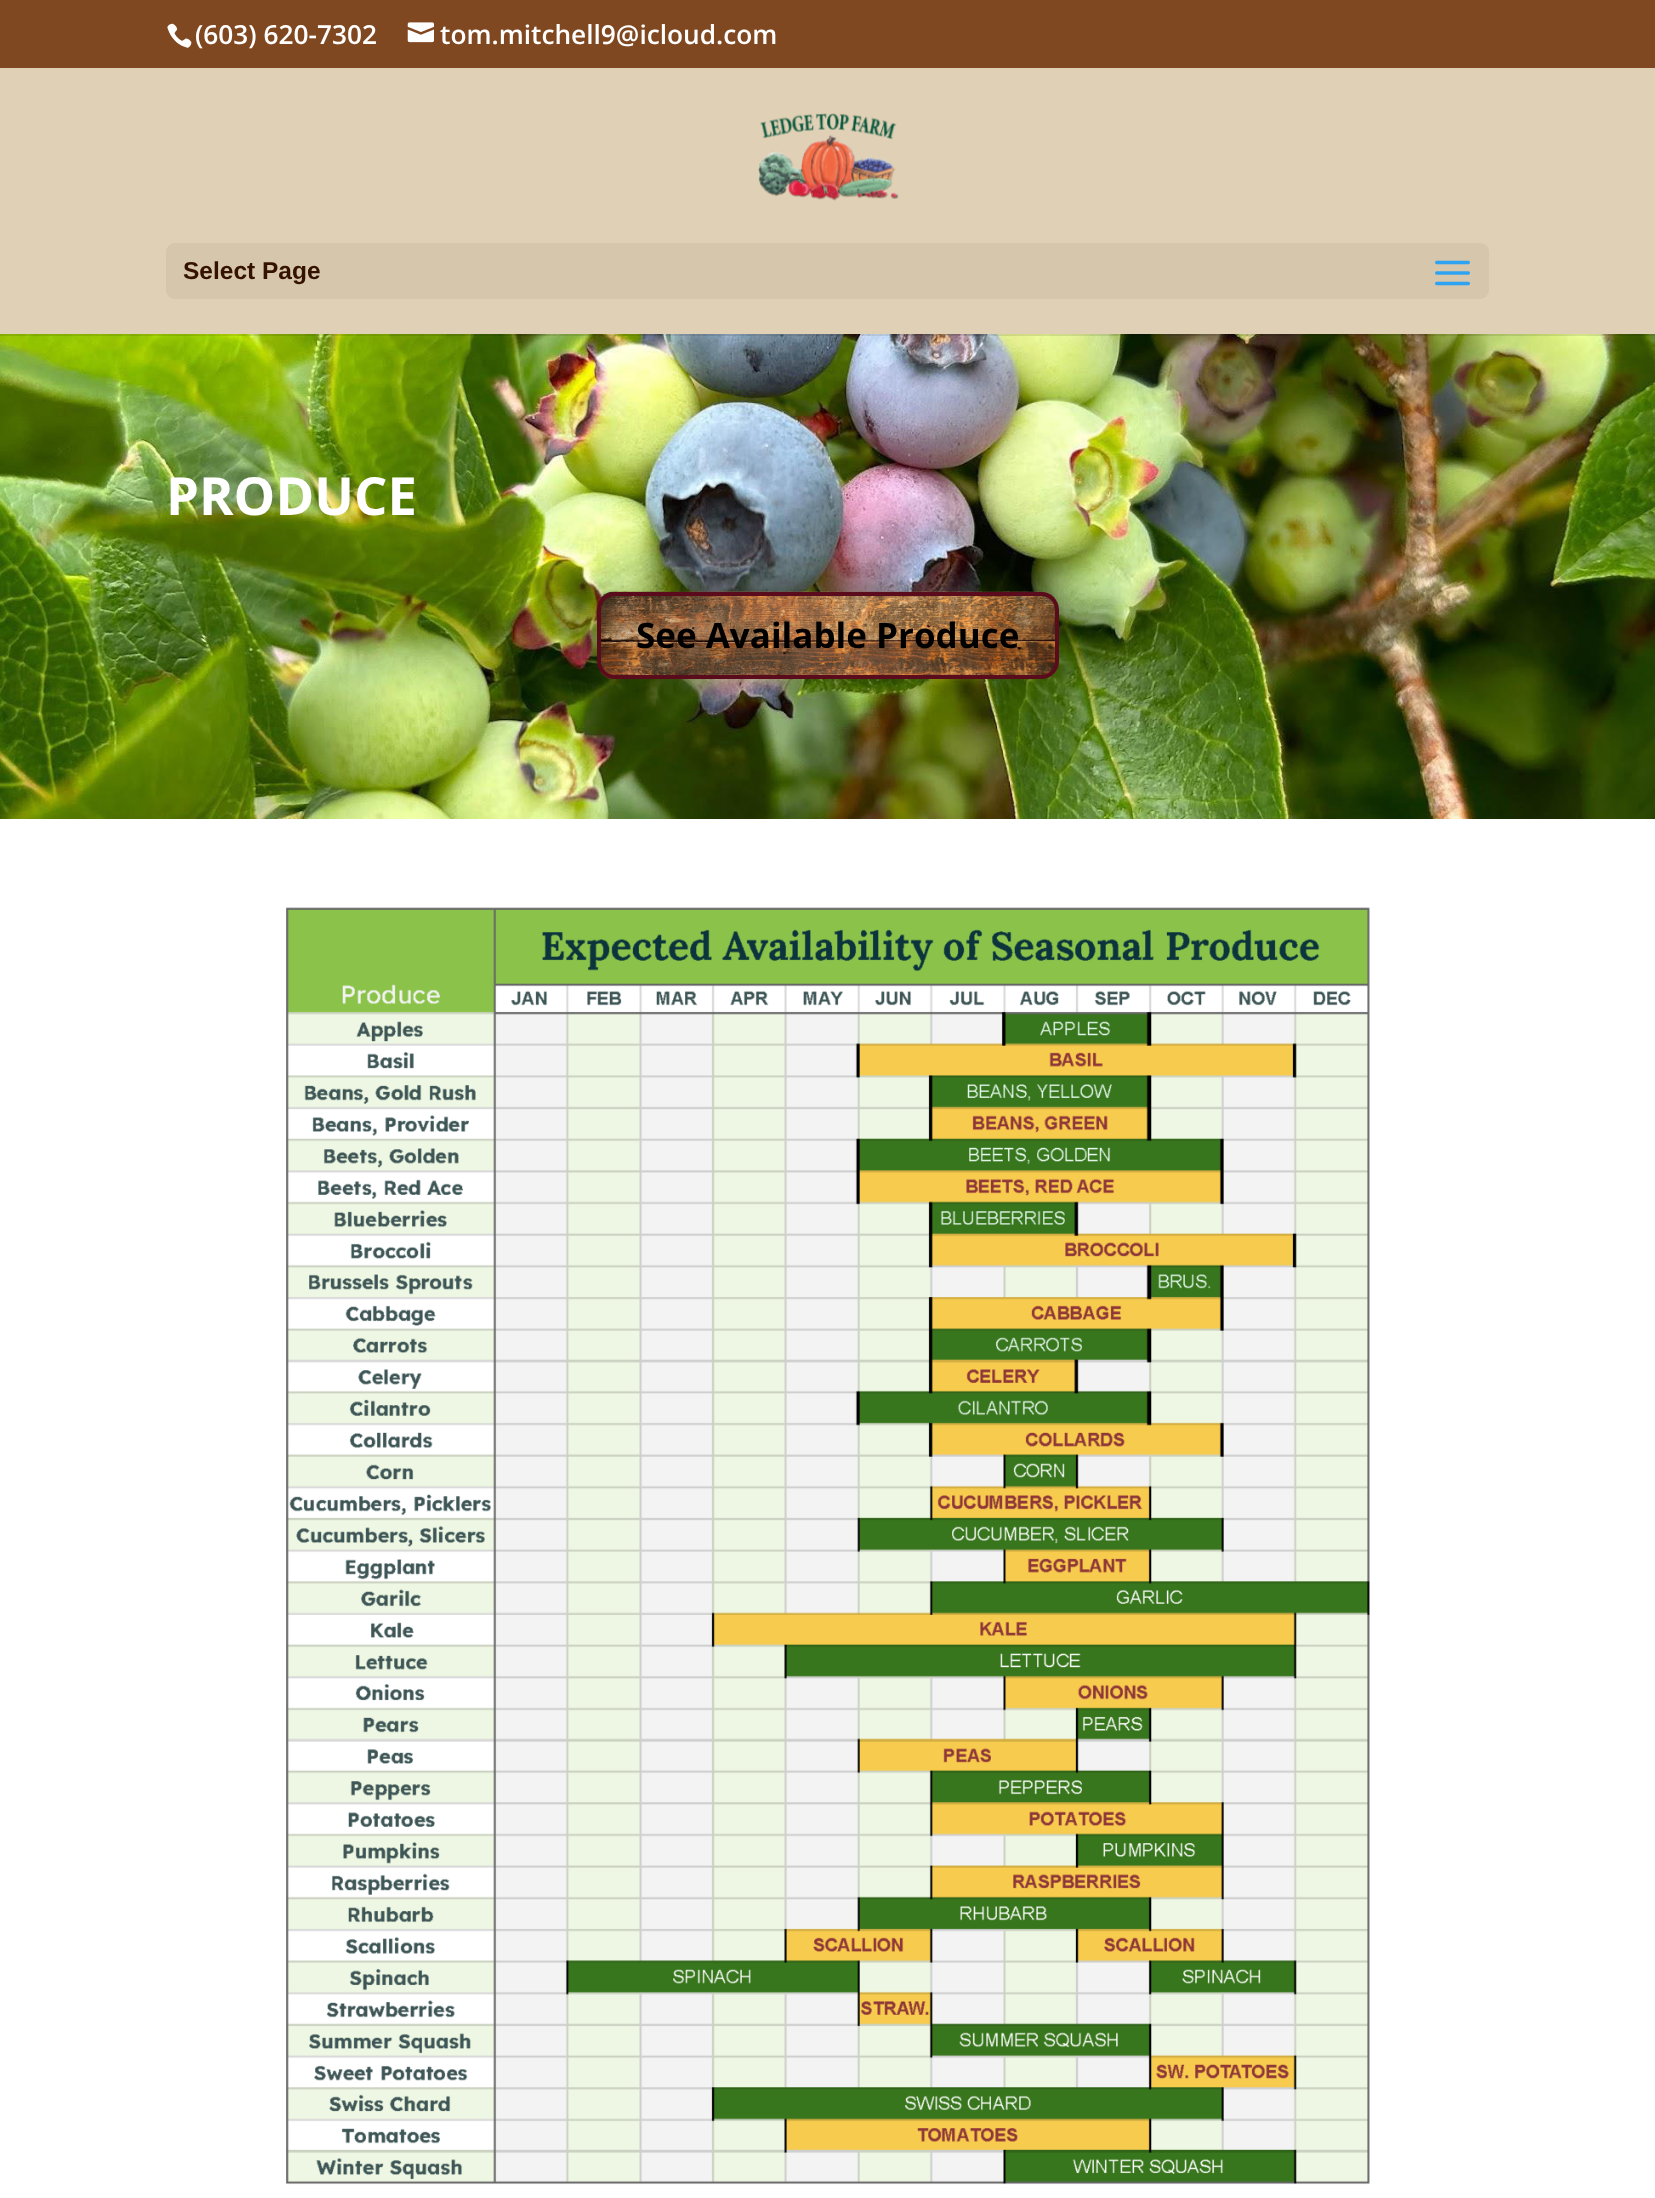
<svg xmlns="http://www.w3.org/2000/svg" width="1655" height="2198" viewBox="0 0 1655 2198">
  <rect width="100%" height="100%" fill="#ffffff"/>
  <rect x="0" y="0" width="1655" height="68" fill="#804821"/>
  <image x="167" y="23" width="25" height="25" href="img1.png"/>
  <text x="195" y="44" font-family="Open Sans" font-size="26.25" font-weight="600" fill="#ffffff">(603) 620-7302</text>
  <image x="407" y="22" width="27" height="21" href="img2.png"/>
  <text x="440" y="44" font-family="Open Sans" font-size="26.25" font-weight="600" fill="#ffffff">tom.mitchell9@icloud.com</text>
  <image x="0" y="334" width="1655" height="485" href="img5.png"/>
  <path d="M0 334V336H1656V70V334Z" fill="#000000" fill-opacity="0.1"/>
  <rect x="0" y="68" width="1655" height="266" fill="#e0d0b5"/>
  <image x="758" y="113" width="141" height="88" href="img3.png"/>
  <rect x="166" y="243" width="1323" height="56" rx="9" fill="#d5c6ac"/>
  <text x="183" y="279" font-family="Liberation Sans" font-size="24.5" font-weight="bold" fill="#351100">Select Page</text>
  <image x="1435" y="260" width="35" height="26" href="img4.png"/>
  <text x="166" y="515" font-family="Open Sans" font-size="52.5" font-weight="bold" fill="#ffffff">PRODUCE</text>
  <image x="600" y="591" width="456" height="88" href="img6.png"/>
  <rect x="599" y="594" width="458" height="83" rx="16" fill="none" stroke="#5a0c1c" stroke-width="4"/>
  <text x="636" y="648" font-family="Open Sans" font-size="35" font-weight="bold" fill="#000000">See Available Produce</text>
  <image x="286" y="907" width="1084" height="1278" href="img7.png"/>
</svg>
